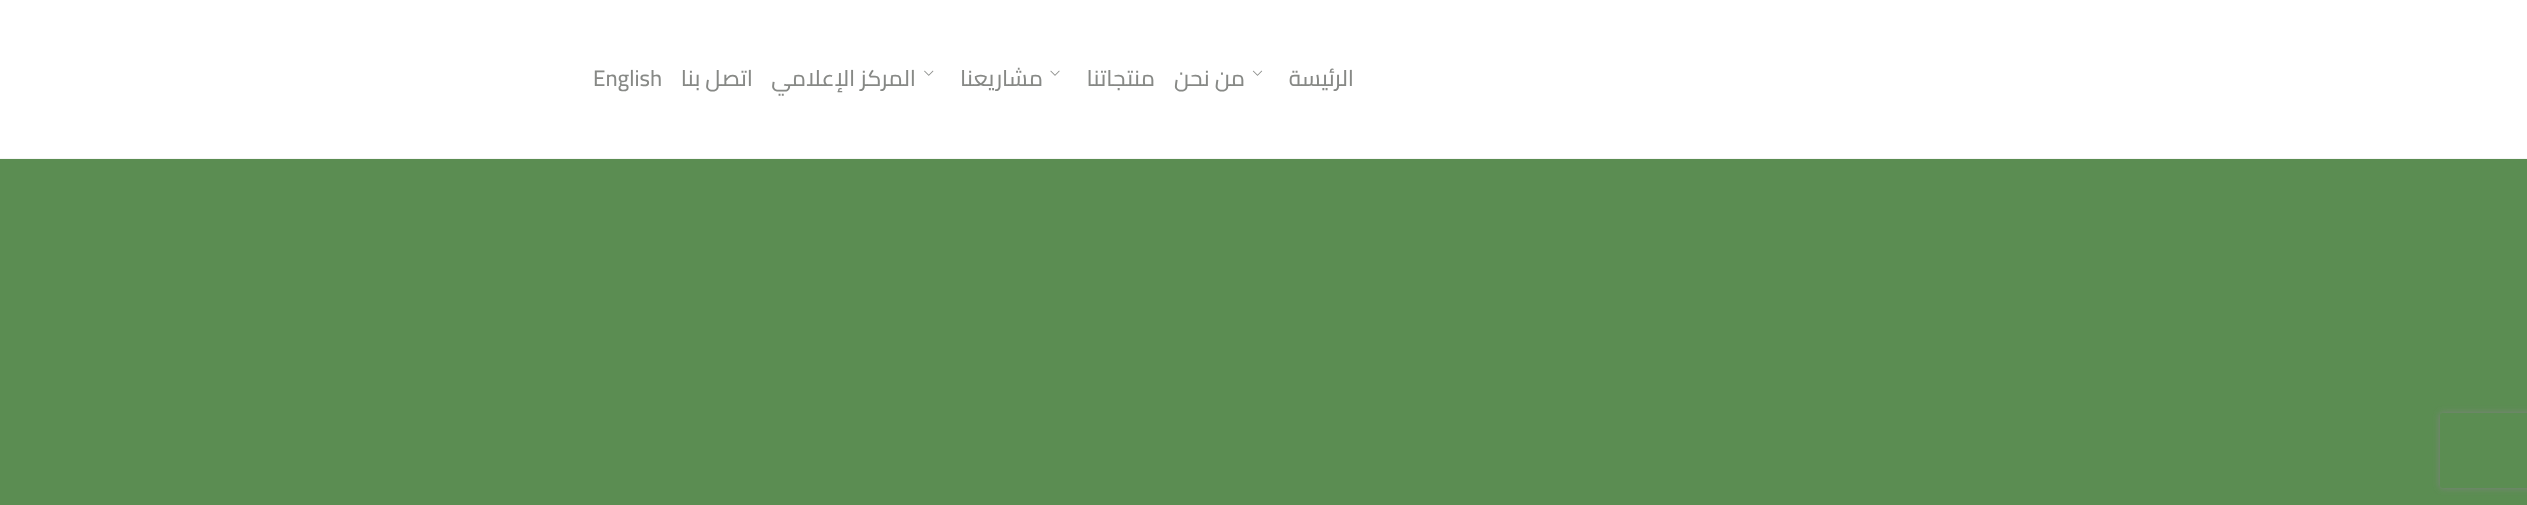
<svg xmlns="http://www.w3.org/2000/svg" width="2527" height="505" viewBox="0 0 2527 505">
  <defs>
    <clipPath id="clip1"><path d="M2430 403H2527V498H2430ZM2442.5 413H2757.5C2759 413 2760 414 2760 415.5V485.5C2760 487 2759 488 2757.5 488H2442.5C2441 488 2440 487 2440 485.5V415.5C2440 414 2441 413 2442.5 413Z" clip-rule="evenodd"/></clipPath>
    <filter id="blur1" x="-50%" y="-200%" width="200%" height="500%"><feGaussianBlur stdDeviation="3"/></filter>
  </defs>
  <rect width="100%" height="100%" fill="#ffffff"/>
  <rect x="0" y="158" width="2527" height="1" fill="#f5f6f5"/>
  <text x="1354" y="86" font-family="Cairo" font-size="22.5" font-weight="500" direction="rtl" fill="#878986">الرئيسة</text>
  <image x="1252" y="70" width="11" height="6" href="img1.png"/>
  <text x="1245" y="86" font-family="Cairo" font-size="22.5" font-weight="500" direction="rtl" fill="#878986">من نحن</text>
  <text x="1155" y="86" font-family="Cairo" font-size="22.5" font-weight="500" direction="rtl" fill="#878986">منتجاتنا</text>
  <image x="1050" y="70" width="10" height="6" href="img2.png"/>
  <text x="1043" y="86" font-family="Cairo" font-size="22.5" font-weight="500" direction="rtl" fill="#878986">مشاريعنا</text>
  <image x="924" y="70" width="10" height="6" href="img3.png"/>
  <text x="916" y="86" font-family="Cairo" font-size="22.5" font-weight="500" direction="rtl" fill="#878986">المركز الإعلامي</text>
  <text x="753" y="86" font-family="Cairo" font-size="22.5" font-weight="500" direction="rtl" fill="#878986">اتصل بنا</text>
  <text x="593" y="86" font-family="Cairo" font-size="22.5" font-weight="500" fill="#878986">English</text>
  <rect x="0" y="159" width="2527" height="346" fill="#5b8d52"/>
  <g clip-path="url(#clip1)">
    <rect x="2440" y="413" width="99" height="75" rx="2.5" fill="#808080" filter="url(#blur1)"/>
  </g>
</svg>
